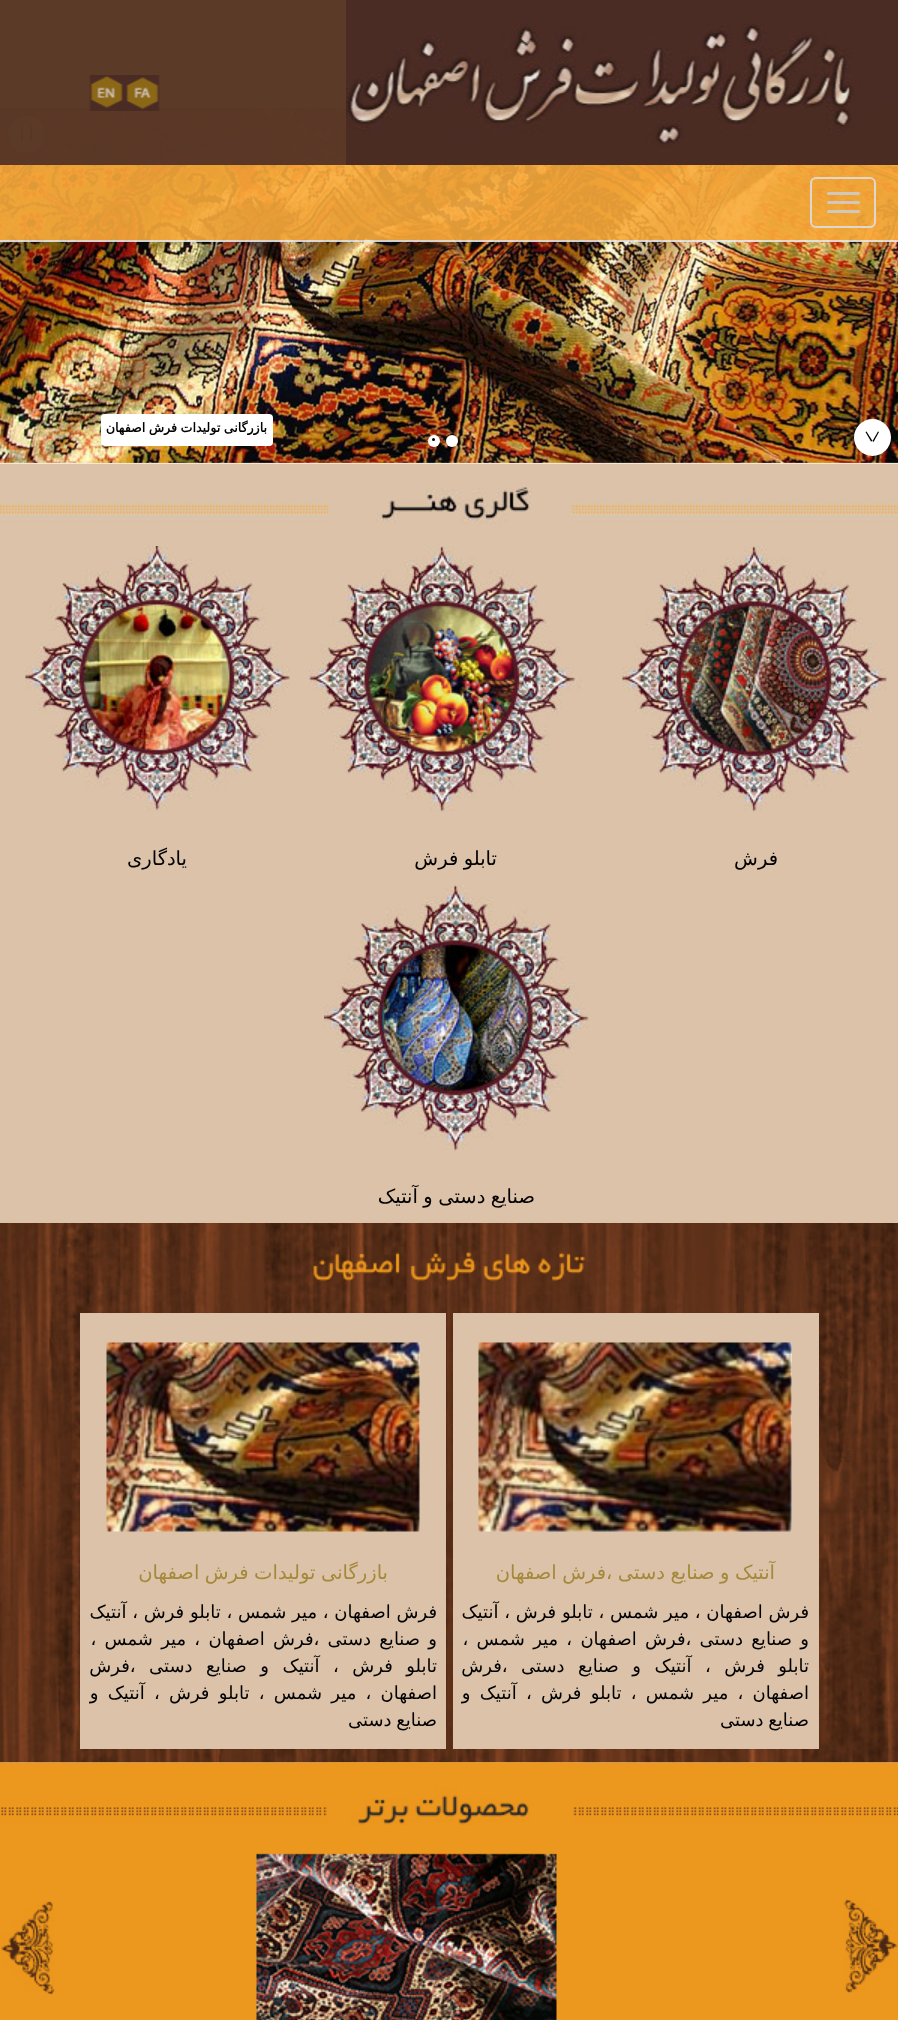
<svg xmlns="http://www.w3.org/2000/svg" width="898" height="2020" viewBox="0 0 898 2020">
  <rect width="100%" height="100%" fill="#ffffff"/>
  <image x="0" y="108" width="898" height="356" href="img3.png"/>
  <circle cx="26.5" cy="134.5" r="18.5" fill="#ffffff"/>
  <rect x="30" y="126" width="2" height="15" fill="#000000"/>
  <rect x="21" y="126" width="2" height="15" fill="#000000"/>
  <rect x="0" y="0" width="898" height="240" fill="#f7aa3b" fill-opacity="0.9"/>
  <rect x="0" y="240" width="898" height="2" fill="#e7e7e7" fill-opacity="0.9"/>
  <rect x="0" y="0" width="898" height="165" fill="#4a2c25" fill-opacity="0.9"/>
  <image x="346" y="0" width="552" height="165" href="img1.png"/>
  <image x="89" y="75" width="71" height="36" href="img2.png"/>
  <rect x="811" y="178" width="64" height="49" rx="5" fill="none" stroke="#dddddd" stroke-opacity="0.9" stroke-width="2"/>
  <rect x="827" y="192" width="33" height="3" rx="1.5" fill="#cccccc" fill-opacity="0.9"/>
  <rect x="827" y="201" width="33" height="3" rx="1.5" fill="#cccccc" fill-opacity="0.9"/>
  <rect x="827" y="210" width="33" height="3" rx="1.5" fill="#cccccc" fill-opacity="0.9"/>
  <circle cx="872.5" cy="437.5" r="18.5" fill="#ffffff"/>
  <path d="M872.5 441L878 431.5L879 432L873.5 442Z" fill="#000000"/>
  <path d="M866.5 431.5L872.5 441L871 441.5L865.5 432Z" fill="#000000"/>
  <circle cx="452" cy="441" r="6" fill="#ffffff"/>
  <circle cx="434" cy="441" r="6" fill="#ffffff"/>
  <circle cx="433.5" cy="439.5" r="1.5" fill="#000000"/>
  <rect x="101" y="414" width="172" height="32" rx="4" fill="#ffffff"/>
  <text x="267" y="432" word-spacing="-0.5" font-family="DejaVu Sans" font-size="12.6" font-weight="bold" direction="rtl" fill="#000000">بازرگانی تولیدات فرش اصفهان</text>
  <rect x="0" y="524" width="898" height="699" fill="#dbc2a9"/>
  <image x="0" y="464" width="898" height="60" href="img4.png"/>
  <image x="328" y="464" width="244" height="60" href="img5.png"/>
  <image x="622" y="546" width="265" height="266" href="img6.png"/>
  <text x="778" y="865" font-family="DejaVu Sans" font-size="19.5" direction="rtl" fill="#000000">فرش</text>
  <image x="309" y="546" width="274" height="266" href="img7.png"/>
  <text x="497" y="865" word-spacing="-0.75" font-family="DejaVu Sans" font-size="19.5" direction="rtl" fill="#000000">تابلو فرش</text>
  <image x="25" y="546" width="265" height="265" href="img8.png"/>
  <text x="187" y="865" font-family="DejaVu Sans" font-size="19.5" direction="rtl" fill="#000000">یادگاری</text>
  <image x="324" y="885" width="265" height="266" href="img9.png"/>
  <text x="535" y="1203" word-spacing="-0.75" font-family="DejaVu Sans" font-size="19.5" direction="rtl" fill="#000000">صنایع دستی و آنتیک</text>
  <image x="0" y="1223" width="898" height="540" href="img10.png"/>
  <image x="313" y="1252" width="273" height="30" href="img11.png"/>
  <rect x="453" y="1313" width="366" height="436" fill="#dbc2a9"/>
  <image x="478" y="1342" width="314" height="190" href="img12.png"/>
  <text x="775" y="1579" word-spacing="-0.75" font-family="DejaVu Sans" font-size="19.5" direction="rtl" fill="#a5893a">آنتیک و صنایع دستی ،فرش اصفهان</text>
  <text x="809" y="1618" font-family="DejaVu Sans" font-size="18" direction="rtl" fill="#000000">فرش اصفهان ، میر شمس ، تابلو فرش ، آنتیک</text>
  <text x="809" y="1645" word-spacing="2.5" font-family="DejaVu Sans" font-size="18" direction="rtl" fill="#000000">و صنایع دستی ،فرش اصفهان ، میر شمس ،</text>
  <text x="809" y="1672" word-spacing="7.75" font-family="DejaVu Sans" font-size="18" direction="rtl" fill="#000000">تابلو فرش ، آنتیک و صنایع دستی ،فرش</text>
  <text x="809" y="1699" word-spacing="3.5" font-family="DejaVu Sans" font-size="18" direction="rtl" fill="#000000">اصفهان ، میر شمس ، تابلو فرش ، آنتیک و</text>
  <text x="809" y="1726" word-spacing="-1" font-family="DejaVu Sans" font-size="18" direction="rtl" fill="#000000">صنایع دستی</text>
  <rect x="80" y="1313" width="366" height="436" fill="#dbc2a9"/>
  <image x="106" y="1342" width="314" height="190" href="img13.png"/>
  <text x="388" y="1579" word-spacing="-0.75" font-family="DejaVu Sans" font-size="19.5" direction="rtl" fill="#a5893a">بازرگانی تولیدات فرش اصفهان</text>
  <text x="437" y="1618" font-family="DejaVu Sans" font-size="18" direction="rtl" fill="#000000">فرش اصفهان ، میر شمس ، تابلو فرش ، آنتیک</text>
  <text x="437" y="1645" word-spacing="2.5" font-family="DejaVu Sans" font-size="18" direction="rtl" fill="#000000">و صنایع دستی ،فرش اصفهان ، میر شمس ،</text>
  <text x="437" y="1672" word-spacing="7.75" font-family="DejaVu Sans" font-size="18" direction="rtl" fill="#000000">تابلو فرش ، آنتیک و صنایع دستی ،فرش</text>
  <text x="437" y="1699" word-spacing="3.5" font-family="DejaVu Sans" font-size="18" direction="rtl" fill="#000000">اصفهان ، میر شمس ، تابلو فرش ، آنتیک و</text>
  <text x="437" y="1726" word-spacing="-1" font-family="DejaVu Sans" font-size="18" direction="rtl" fill="#000000">صنایع دستی</text>
  <image x="0" y="1762" width="898" height="258" href="img14.png"/>
  <image x="327" y="1762" width="246" height="63" href="img15.png"/>
  <image x="844" y="1899" width="54" height="94" href="img16.png"/>
  <image x="256" y="1853" width="301" height="167" href="img17.png"/>
  <image x="1" y="1901" width="54" height="94" href="img18.png"/>
</svg>
